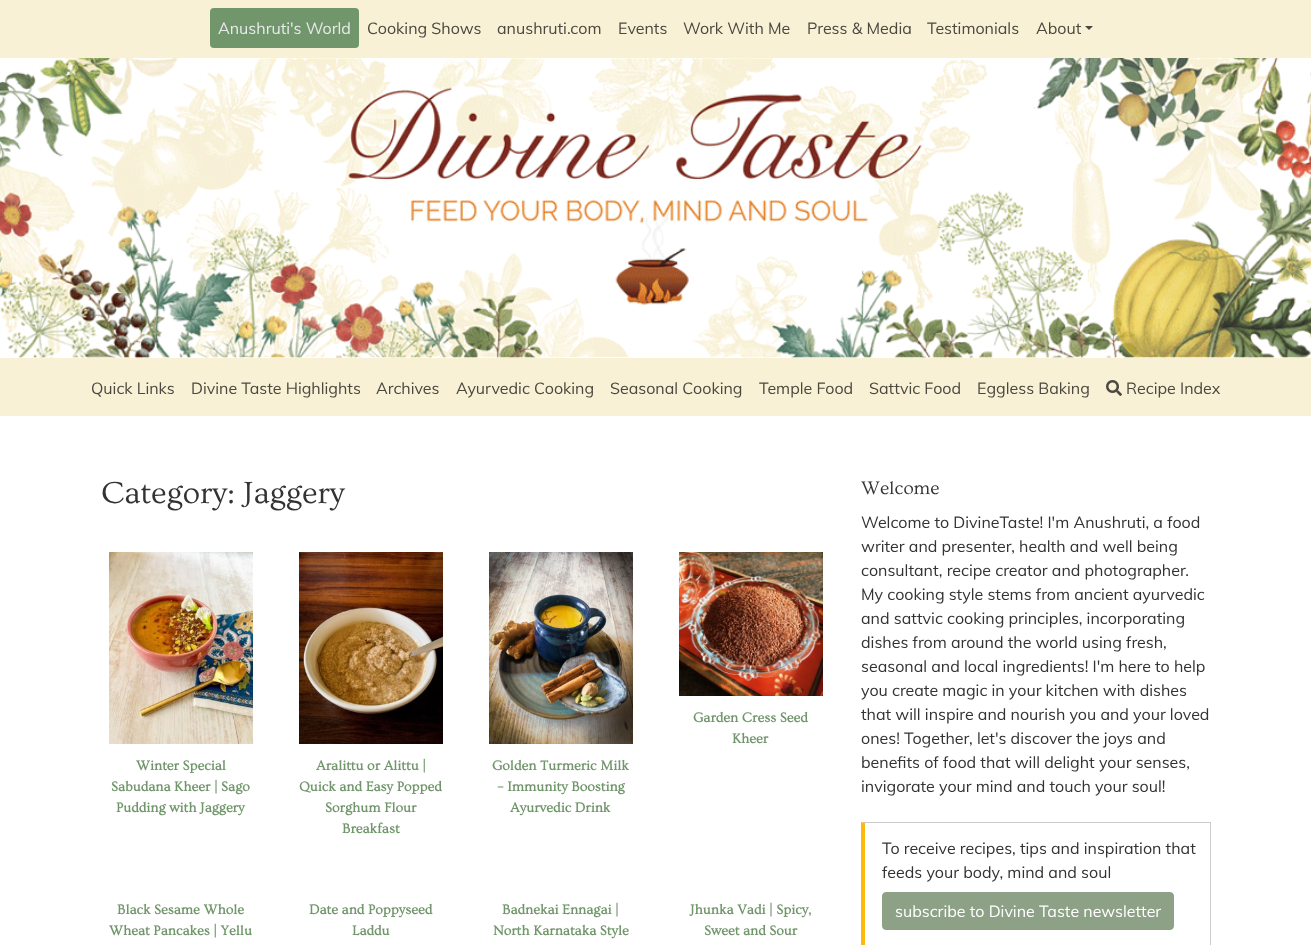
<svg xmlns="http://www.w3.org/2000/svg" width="1311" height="945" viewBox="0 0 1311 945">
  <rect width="100%" height="100%" fill="#ffffff"/>
  <rect x="0" y="0" width="1311" height="416" fill="#f9f1d5"/>
  <rect x="210" y="8" width="149" height="40" rx="4" fill="#71966b"/>
  <text x="218" y="34" font-family="Muli" font-size="16" fill="#e8e9eb">Anushruti's World</text>
  <text x="367" y="34" font-family="Muli" font-size="16" fill="#4b4840">Cooking Shows</text>
  <text x="497" y="34" font-family="Muli" font-size="16" fill="#4b4840">anushruti.com</text>
  <text x="618" y="34" font-family="Muli" font-size="16" fill="#4b4840">Events</text>
  <text x="683" y="34" font-family="Muli" font-size="16" fill="#4b4840">Work With Me</text>
  <text x="807" y="34" font-family="Muli" font-size="16" fill="#4b4840">Press &amp; Media</text>
  <text x="927" y="34" font-family="Muli" font-size="16" fill="#4b4840">Testimonials</text>
  <text x="1036" y="34" font-family="Muli" font-size="16" fill="#4b4840">About</text>
  <path d="M1085 26H1093L1089 30Z" fill="#4b4840"/>
  <text x="91" y="394" font-family="Muli" font-size="16" fill="#4b4840">Quick Links</text>
  <text x="191" y="394" font-family="Muli" font-size="16" fill="#4b4840">Divine Taste Highlights</text>
  <text x="376" y="394" font-family="Muli" font-size="16" fill="#4b4840">Archives</text>
  <text x="456" y="394" font-family="Muli" font-size="16" fill="#4b4840">Ayurvedic Cooking</text>
  <text x="610" y="394" font-family="Muli" font-size="16" fill="#4b4840">Seasonal Cooking</text>
  <text x="759" y="394" font-family="Muli" font-size="16" fill="#4b4840">Temple Food</text>
  <text x="869" y="394" font-family="Muli" font-size="16" fill="#4b4840">Sattvic Food</text>
  <text x="977" y="394" font-family="Muli" font-size="16" fill="#4b4840">Eggless Baking</text>
  <image x="1106" y="380" width="16" height="16" href="img1.png"/>
  <text x="1126" y="394" font-family="Muli" font-size="16" fill="#4b4840">Recipe Index</text>
  <image x="0" y="58" width="1311" height="300" href="img2.png"/>
  <text x="101" y="503" font-family="Ovo" font-size="32" fill="#333333">Category: Jaggery</text>
  <image x="679" y="552" width="144" height="144" href="img3.png"/>
  <text x="693" y="722" font-family="Ovo" font-size="14" font-weight="bold" fill="#71966b">Garden Cress Seed</text>
  <text x="732" y="743" font-family="Ovo" font-size="14" font-weight="bold" fill="#71966b">Kheer</text>
  <image x="109" y="552" width="144" height="192" href="img4.png"/>
  <text x="136" y="770" font-family="Ovo" font-size="14" font-weight="bold" fill="#71966b">Winter Special</text>
  <text x="111" y="791" font-family="Ovo" font-size="14" font-weight="bold" fill="#71966b">Sabudana Kheer | Sago</text>
  <text x="116" y="812" font-family="Ovo" font-size="14" font-weight="bold" fill="#71966b">Pudding with Jaggery</text>
  <image x="299" y="552" width="144" height="192" href="img5.png"/>
  <text x="316" y="770" font-family="Ovo" font-size="14" font-weight="bold" fill="#71966b">Aralittu or Alittu |</text>
  <text x="299" y="791" font-family="Ovo" font-size="14" font-weight="bold" fill="#71966b">Quick and Easy Popped</text>
  <text x="325" y="812" font-family="Ovo" font-size="14" font-weight="bold" fill="#71966b">Sorghum Flour</text>
  <text x="342" y="833" font-family="Ovo" font-size="14" font-weight="bold" fill="#71966b">Breakfast</text>
  <image x="489" y="552" width="144" height="192" href="img6.png"/>
  <text x="492" y="770" font-family="Ovo" font-size="14" font-weight="bold" fill="#71966b">Golden Turmeric Milk</text>
  <text x="497" y="791" font-family="Ovo" font-size="14" font-weight="bold" fill="#71966b">– Immunity Boosting</text>
  <text x="510" y="812" font-family="Ovo" font-size="14" font-weight="bold" fill="#71966b">Ayurvedic Drink</text>
  <text x="117" y="914" font-family="Ovo" font-size="14" font-weight="bold" fill="#71966b">Black Sesame Whole</text>
  <text x="109" y="935" font-family="Ovo" font-size="14" font-weight="bold" fill="#71966b">Wheat Pancakes | Yellu</text>
  <text x="309" y="914" font-family="Ovo" font-size="14" font-weight="bold" fill="#71966b">Date and Poppyseed</text>
  <text x="352" y="935" font-family="Ovo" font-size="14" font-weight="bold" fill="#71966b">Laddu</text>
  <text x="502" y="914" font-family="Ovo" font-size="14" font-weight="bold" fill="#71966b">Badnekai Ennagai |</text>
  <text x="493" y="935" font-family="Ovo" font-size="14" font-weight="bold" fill="#71966b">North Karnataka Style</text>
  <text x="690" y="914" font-family="Ovo" font-size="14" font-weight="bold" fill="#71966b">Jhunka Vadi | Spicy,</text>
  <text x="704" y="935" font-family="Ovo" font-size="14" font-weight="bold" fill="#71966b">Sweet and Sour</text>
  <text x="861" y="494" font-family="Ovo" font-size="19" fill="#333333">Welcome</text>
  <text x="861" y="528" font-family="Muli" font-size="16" fill="#333333">Welcome to DivineTaste! I'm Anushruti, a food</text>
  <text x="861" y="552" font-family="Muli" font-size="16" fill="#333333">writer and presenter, health and well being</text>
  <text x="861" y="576" font-family="Muli" font-size="16" fill="#333333">consultant, recipe creator and photographer.</text>
  <text x="861" y="600" font-family="Muli" font-size="16" fill="#333333">My cooking style stems from ancient ayurvedic</text>
  <text x="861" y="624" font-family="Muli" font-size="16" fill="#333333">and sattvic cooking principles, incorporating</text>
  <text x="861" y="648" font-family="Muli" font-size="16" fill="#333333">dishes from around the world using fresh,</text>
  <text x="861" y="672" font-family="Muli" font-size="16" fill="#333333">seasonal and local ingredients! I'm here to help</text>
  <text x="861" y="696" font-family="Muli" font-size="16" fill="#333333">you create magic in your kitchen with dishes</text>
  <text x="861" y="720" font-family="Muli" font-size="16" fill="#333333">that will inspire and nourish you and your loved</text>
  <text x="861" y="744" font-family="Muli" font-size="16" fill="#333333">ones! Together, let's discover the joys and</text>
  <text x="861" y="768" font-family="Muli" font-size="16" fill="#333333">benefits of food that will delight your senses,</text>
  <text x="861" y="792" font-family="Muli" font-size="16" fill="#333333">invigorate your mind and touch your soul!</text>
  <path d="M861 822H1211L1210 823H865Z" fill="#cccccc"/>
  <rect x="1210" y="822" width="1" height="123" fill="#cccccc"/>
  <path d="M861 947V822L865 823V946Z" fill="#ffb80c"/>
  <text x="882" y="854" font-family="Muli" font-size="16" fill="#333333">To receive recipes, tips and inspiration that</text>
  <text x="882" y="878" font-family="Muli" font-size="16" fill="#333333">feeds your body, mind and soul</text>
  <rect x="882.5" y="892.5" width="291" height="37" rx="3.5" fill="#8da187" stroke="#8da187"/>
  <text x="895" y="917" font-family="Muli" font-size="16" fill="#ffffff">subscribe to Divine Taste newsletter</text>
</svg>
